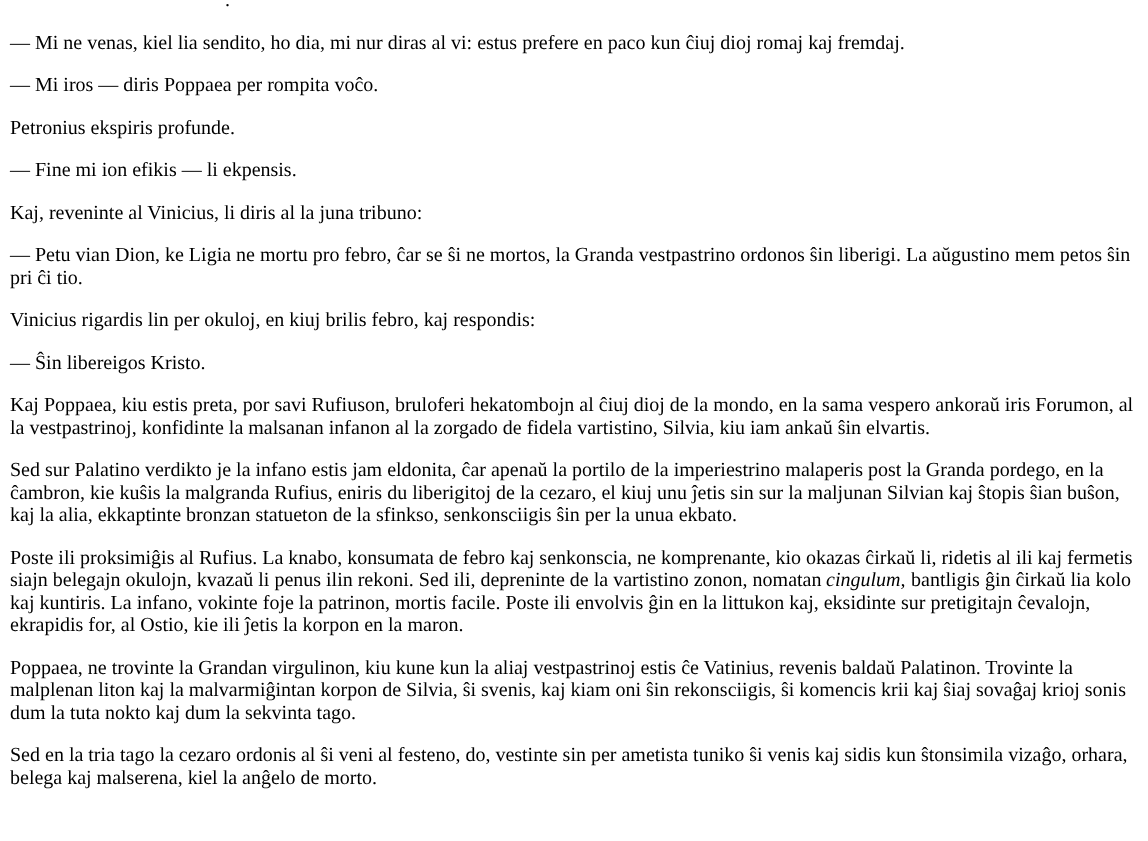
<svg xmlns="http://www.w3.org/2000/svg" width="1148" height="841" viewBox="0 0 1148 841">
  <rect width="100%" height="100%" fill="#ffffff"/>
  <text x="225" y="6" font-family="Liberation Serif" font-size="20" fill="#000000">.</text>
  <text x="10" y="49" font-family="Liberation Serif" font-size="20" fill="#000000">— Mi ne venas, kiel lia sendito, ho dia, mi nur diras al vi: estus prefere en paco kun ĉiuj dioj romaj kaj fremdaj.</text>
  <text x="10" y="91" font-family="Liberation Serif" font-size="20" fill="#000000">— Mi iros — diris Poppaea per rompita voĉo.</text>
  <text x="10" y="134" font-family="Liberation Serif" font-size="20" fill="#000000">Petronius ekspiris profunde.</text>
  <text x="10" y="176" font-family="Liberation Serif" font-size="20" fill="#000000">— Fine mi ion efikis — li ekpensis.</text>
  <text x="10" y="219" font-family="Liberation Serif" font-size="20" fill="#000000">Kaj, reveninte al Vinicius, li diris al la juna tribuno:</text>
  <text x="10" y="261" font-family="Liberation Serif" font-size="20" fill="#000000">— Petu vian Dion, ke Ligia ne mortu pro febro, ĉar se ŝi ne mortos, la Granda vestpastrino ordonos ŝin liberigi. La aŭgustino mem petos ŝin</text>
  <text x="10" y="284" font-family="Liberation Serif" font-size="20" fill="#000000">pri ĉi tio.</text>
  <text x="10" y="326" font-family="Liberation Serif" font-size="20" fill="#000000">Vinicius rigardis lin per okuloj, en kiuj brilis febro, kaj respondis:</text>
  <text x="10" y="369" font-family="Liberation Serif" font-size="20" fill="#000000">— Ŝin libereigos Kristo.</text>
  <text x="10" y="411" font-family="Liberation Serif" font-size="20" fill="#000000">Kaj Poppaea, kiu estis preta, por savi Rufiuson, bruloferi hekatombojn al ĉiuj dioj de la mondo, en la sama vespero ankoraŭ iris Forumon, al</text>
  <text x="10" y="434" font-family="Liberation Serif" font-size="20" fill="#000000">la vestpastrinoj, konfidinte la malsanan infanon al la zorgado de fidela vartistino, Silvia, kiu iam ankaŭ ŝin elvartis.</text>
  <text x="10" y="476" font-family="Liberation Serif" font-size="20" fill="#000000">Sed sur Palatino verdikto je la infano estis jam eldonita, ĉar apenaŭ la portilo de la imperiestrino malaperis post la Granda pordego, en la</text>
  <text x="10" y="499" font-family="Liberation Serif" font-size="20" fill="#000000">ĉambron, kie kuŝis la malgranda Rufius, eniris du liberigitoj de la cezaro, el kiuj unu ĵetis sin sur la maljunan Silvian kaj ŝtopis ŝian buŝon,</text>
  <text x="10" y="521" font-family="Liberation Serif" font-size="20" fill="#000000">kaj la alia, ekkaptinte bronzan statueton de la sfinkso, senkonsciigis ŝin per la unua ekbato.</text>
  <text x="10" y="564" font-family="Liberation Serif" font-size="20" fill="#000000">Poste ili proksimiĝis al Rufius. La knabo, konsumata de febro kaj senkonscia, ne komprenante, kio okazas ĉirkaŭ li, ridetis al ili kaj fermetis</text>
  <text x="10" y="586" font-family="Liberation Serif" font-size="20" fill="#000000">siajn belegajn okulojn, kvazaŭ li penus ilin rekoni. Sed ili, depreninte de la vartistino zonon, nomatan</text>
  <text x="826" y="586" font-family="Liberation Serif" font-size="20" font-style="italic" fill="#000000">cingulum,</text>
  <text x="911" y="586" font-family="Liberation Serif" font-size="20" fill="#000000">bantligis ĝin ĉirkaŭ lia kolo</text>
  <text x="10" y="609" font-family="Liberation Serif" font-size="20" fill="#000000">kaj kuntiris. La infano, vokinte foje la patrinon, mortis facile. Poste ili envolvis ĝin en la littukon kaj, eksidinte sur pretigitajn ĉevalojn,</text>
  <text x="10" y="631" font-family="Liberation Serif" font-size="20" fill="#000000">ekrapidis for, al Ostio, kie ili ĵetis la korpon en la maron.</text>
  <text x="10" y="674" font-family="Liberation Serif" font-size="20" fill="#000000">Poppaea, ne trovinte la Grandan virgulinon, kiu kune kun la aliaj vestpastrinoj estis ĉe Vatinius, revenis baldaŭ Palatinon. Trovinte la</text>
  <text x="10" y="696" font-family="Liberation Serif" font-size="20" fill="#000000">malplenan liton kaj la malvarmiĝintan korpon de Silvia, ŝi svenis, kaj kiam oni ŝin rekonsciigis, ŝi komencis krii kaj ŝiaj sovaĝaj krioj sonis</text>
  <text x="10" y="719" font-family="Liberation Serif" font-size="20" fill="#000000">dum la tuta nokto kaj dum la sekvinta tago.</text>
  <text x="10" y="761" font-family="Liberation Serif" font-size="20" fill="#000000">Sed en la tria tago la cezaro ordonis al ŝi veni al festeno, do, vestinte sin per ametista tuniko ŝi venis kaj sidis kun ŝtonsimila vizaĝo, orhara,</text>
  <text x="10" y="784" font-family="Liberation Serif" font-size="20" fill="#000000">belega kaj malserena, kiel la anĝelo de morto.</text>
</svg>
